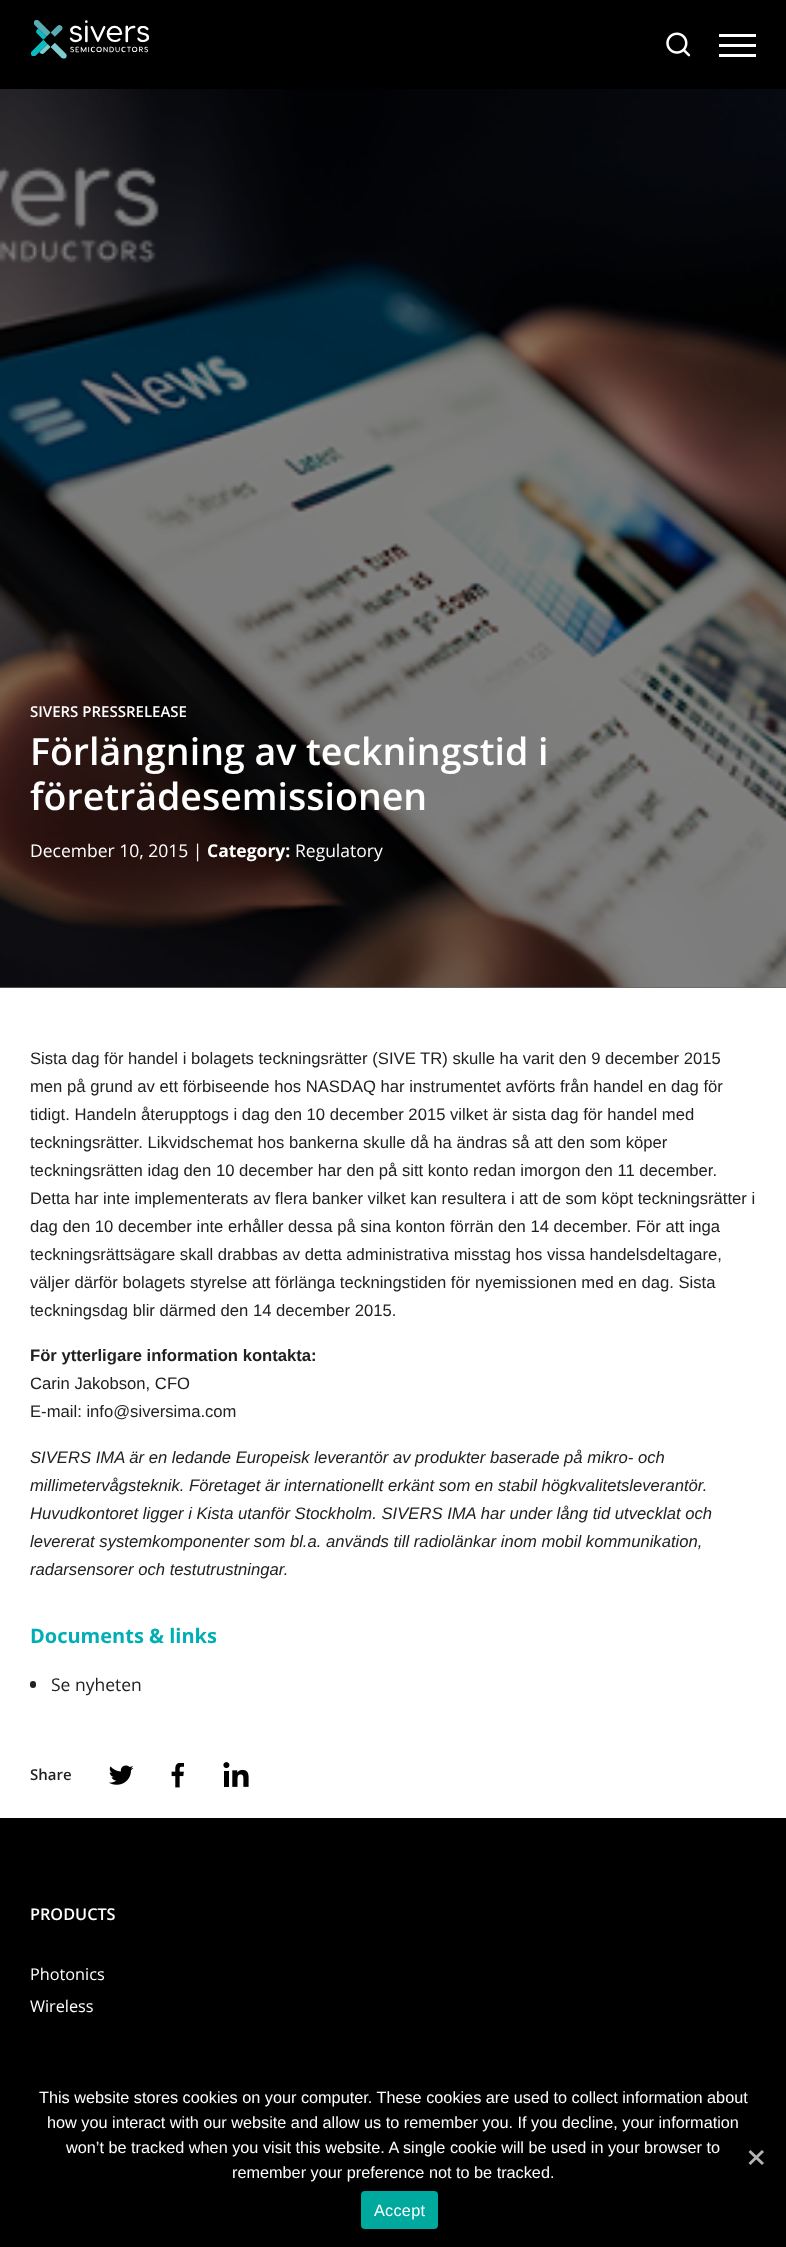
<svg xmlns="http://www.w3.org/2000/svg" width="786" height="2247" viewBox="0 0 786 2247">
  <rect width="100%" height="100%" fill="#ffffff"/>
  <rect x="0" y="0" width="786" height="89" fill="#000000"/>
  <image x="31" y="20" width="118" height="39" href="img1.png"/>
  <image x="666" y="32" width="25" height="25" href="img2.png"/>
  <rect x="719" y="34" width="37" height="3" fill="#ffffff"/>
  <rect x="719" y="44" width="37" height="3" fill="#ffffff"/>
  <rect x="719" y="54" width="37" height="3" fill="#ffffff"/>
  <rect x="0" y="987" width="786" height="1" fill="#676767"/>
  <image x="0" y="89" width="786" height="899" href="img3.png"/>
  <text x="30" y="717" font-family="Open Sans" font-size="15" font-weight="600" fill="#ffffff">SIVERS PRESSRELEASE</text>
  <text x="30" y="765" font-family="Open Sans" font-size="37.5" font-weight="600" fill="#ffffff">Förlängning av teckningstid i</text>
  <text x="30" y="810" font-family="Open Sans" font-size="37.5" font-weight="600" fill="#ffffff">företrädesemissionen</text>
  <text x="30" y="857" font-family="Open Sans" font-size="17.5" fill="#ffffff">December 10, 2015 |</text>
  <text x="207" y="857" font-family="Open Sans" font-size="17.5" font-weight="bold" fill="#ffffff">Category:</text>
  <text x="295" y="857" font-family="Open Sans" font-size="17.5" fill="#ffffff">Regulatory</text>
  <text x="30" y="1064" font-family="Liberation Sans" font-size="16.65" fill="#212121">Sista dag för handel i bolagets teckningsrätter (SIVE TR) skulle ha varit den 9 december 2015</text>
  <text x="30" y="1092" font-family="Liberation Sans" font-size="16.65" fill="#212121">men på grund av ett förbiseende hos NASDAQ har instrumentet avförts från handel en dag för</text>
  <text x="30" y="1120" font-family="Liberation Sans" font-size="16.65" fill="#212121">tidigt. Handeln återupptogs i dag den 10 december 2015 vilket är sista dag för handel med</text>
  <text x="30" y="1148" font-family="Liberation Sans" font-size="16.65" fill="#212121">teckningsrätter. Likvidschemat hos bankerna skulle då ha ändras så att den som köper</text>
  <text x="30" y="1176" font-family="Liberation Sans" font-size="16.65" fill="#212121">teckningsrätten idag den 10 december har den på sitt konto redan imorgon den 11 december.</text>
  <text x="30" y="1204" font-family="Liberation Sans" font-size="16.65" fill="#212121">Detta har inte implementerats av flera banker vilket kan resultera i att de som köpt teckningsrätter i</text>
  <text x="30" y="1232" font-family="Liberation Sans" font-size="16.65" fill="#212121">dag den 10 december inte erhåller dessa på sina konton förrän den 14 december. För att inga</text>
  <text x="30" y="1260" font-family="Liberation Sans" font-size="16.65" fill="#212121">teckningsrättsägare skall drabbas av detta administrativa misstag hos vissa handelsdeltagare,</text>
  <text x="30" y="1288" font-family="Liberation Sans" font-size="16.65" fill="#212121">väljer därför bolagets styrelse att förlänga teckningstiden för nyemissionen med en dag. Sista</text>
  <text x="30" y="1316" font-family="Liberation Sans" font-size="16.65" fill="#212121">teckningsdag blir därmed den 14 december 2015.</text>
  <text x="30" y="1361" font-family="Liberation Sans" font-size="16.65" font-weight="bold" fill="#212121">För ytterligare information kontakta:</text>
  <text x="30" y="1389" font-family="Liberation Sans" font-size="16.65" fill="#212121">Carin Jakobson, CFO</text>
  <text x="30" y="1417" font-family="Liberation Sans" font-size="16.65" fill="#212121">E-mail: info@siversima.com</text>
  <text x="30" y="1463" font-family="Liberation Sans" font-size="16.65" font-style="italic" fill="#212121">SIVERS IMA är en ledande Europeisk leverantör av produkter baserade på mikro- och</text>
  <text x="30" y="1491" font-family="Liberation Sans" font-size="16.65" font-style="italic" fill="#212121">millimetervågsteknik. Företaget är internationellt erkänt som en stabil högkvalitetsleverantör.</text>
  <text x="30" y="1519" font-family="Liberation Sans" font-size="16.65" font-style="italic" fill="#212121">Huvudkontoret ligger i Kista utanför Stockholm. SIVERS IMA har under lång tid utvecklat och</text>
  <text x="30" y="1547" font-family="Liberation Sans" font-size="16.65" font-style="italic" fill="#212121">levererat systemkomponenter som bl.a. används till radiolänkar inom mobil kommunikation,</text>
  <text x="30" y="1575" font-family="Liberation Sans" font-size="16.65" font-style="italic" fill="#212121">radarsensorer och testutrustningar.</text>
  <text x="30" y="1643" font-family="Open Sans" font-size="20" font-weight="bold" fill="#00aeb5">Documents &amp; links</text>
  <rect x="30" y="1681" width="6" height="7" rx="3" fill="#212121"/>
  <text x="51" y="1691" font-family="Open Sans" font-size="17.5" fill="#212121">Se nyheten</text>
  <text x="30" y="1780" font-family="Open Sans" font-size="15" font-weight="600" fill="#212121">Share</text>
  <image x="109" y="1765" width="25" height="20" href="img4.png"/>
  <image x="171" y="1763" width="13" height="25" href="img5.png"/>
  <image x="223" y="1762" width="26" height="25" href="img6.png"/>
  <rect x="0" y="1818" width="786" height="429" fill="#000000"/>
  <text x="30" y="1920" font-family="Open Sans" font-size="16.25" font-weight="600" fill="#ffffff">PRODUCTS</text>
  <text x="30" y="1980" font-family="Open Sans" font-size="16.25" fill="#ffffff">Photonics</text>
  <text x="30" y="2012" font-family="Open Sans" font-size="16.25" fill="#ffffff">Wireless</text>
  <text x="39" y="2103" font-family="Liberation Sans" font-size="16.25" fill="#ffffff">This website stores cookies on your computer. These cookies are used to collect information about</text>
  <text x="47" y="2128" font-family="Liberation Sans" font-size="16.25" fill="#ffffff">how you interact with our website and allow us to remember you. If you decline, your information</text>
  <text x="66" y="2153" font-family="Liberation Sans" font-size="16.25" fill="#ffffff">won’t be tracked when you visit this website. A single cookie will be used in your browser to</text>
  <text x="232" y="2178" font-family="Liberation Sans" font-size="16.25" fill="#ffffff">remember your preference not to be tracked.</text>
  <path d="M762 2150L764 2152L750.5 2165L748.5 2163Z" fill="#b3b3b3"/>
  <path d="M748.5 2152L750.5 2150L764 2163L762 2165Z" fill="#b3b3b3"/>
  <rect x="361" y="2191" width="77" height="38" rx="4" fill="#00a99d"/>
  <text x="374" y="2216" font-family="Liberation Sans" font-size="16.25" letter-spacing="0.25" fill="#ffffff">Accept</text>
</svg>
